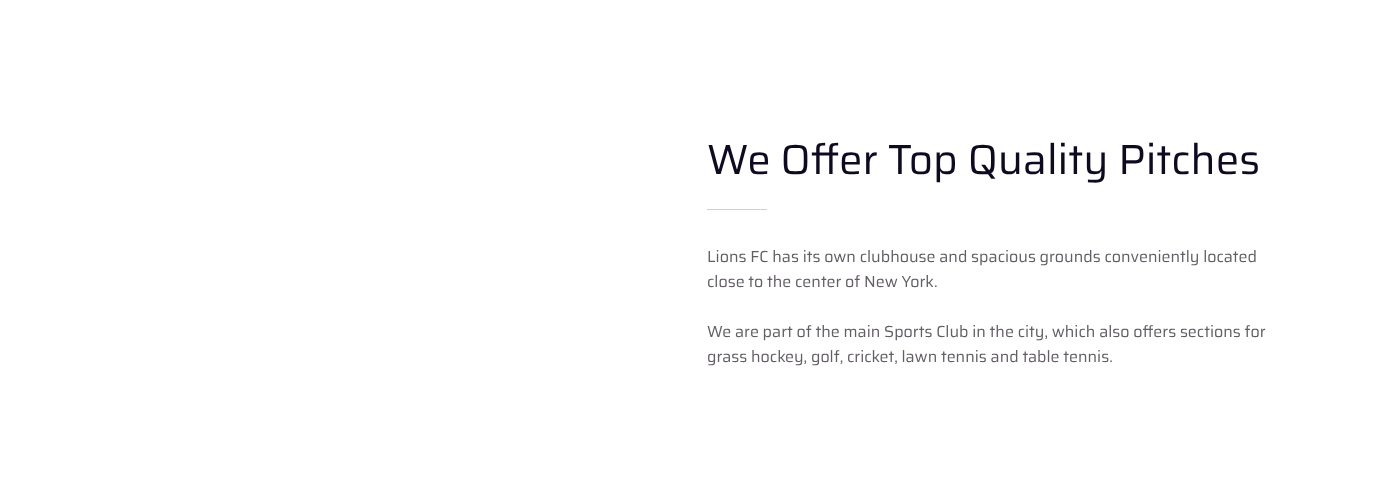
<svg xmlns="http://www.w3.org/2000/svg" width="1384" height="503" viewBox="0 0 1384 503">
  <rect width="100%" height="100%" fill="#ffffff"/>
  <text x="707" y="174" font-family="Saira" font-size="42" fill="#0f0a20">We Offer Top Quality Pitches</text>
  <rect x="707" y="209" width="60" height="1" fill="#cfced2"/>
  <text x="707" y="262" font-family="Saira" font-size="16" fill="#635e65">Lions FC has its own clubhouse and spacious grounds conveniently located</text>
  <text x="707" y="287" font-family="Saira" font-size="16" fill="#635e65">close to the center of New York.</text>
  <text x="707" y="337" font-family="Saira" font-size="16" fill="#635e65">We are part of the main Sports Club in the city, which also offers sections for</text>
  <text x="707" y="362" font-family="Saira" font-size="16" fill="#635e65">grass hockey, golf, cricket, lawn tennis and table tennis.</text>
</svg>
